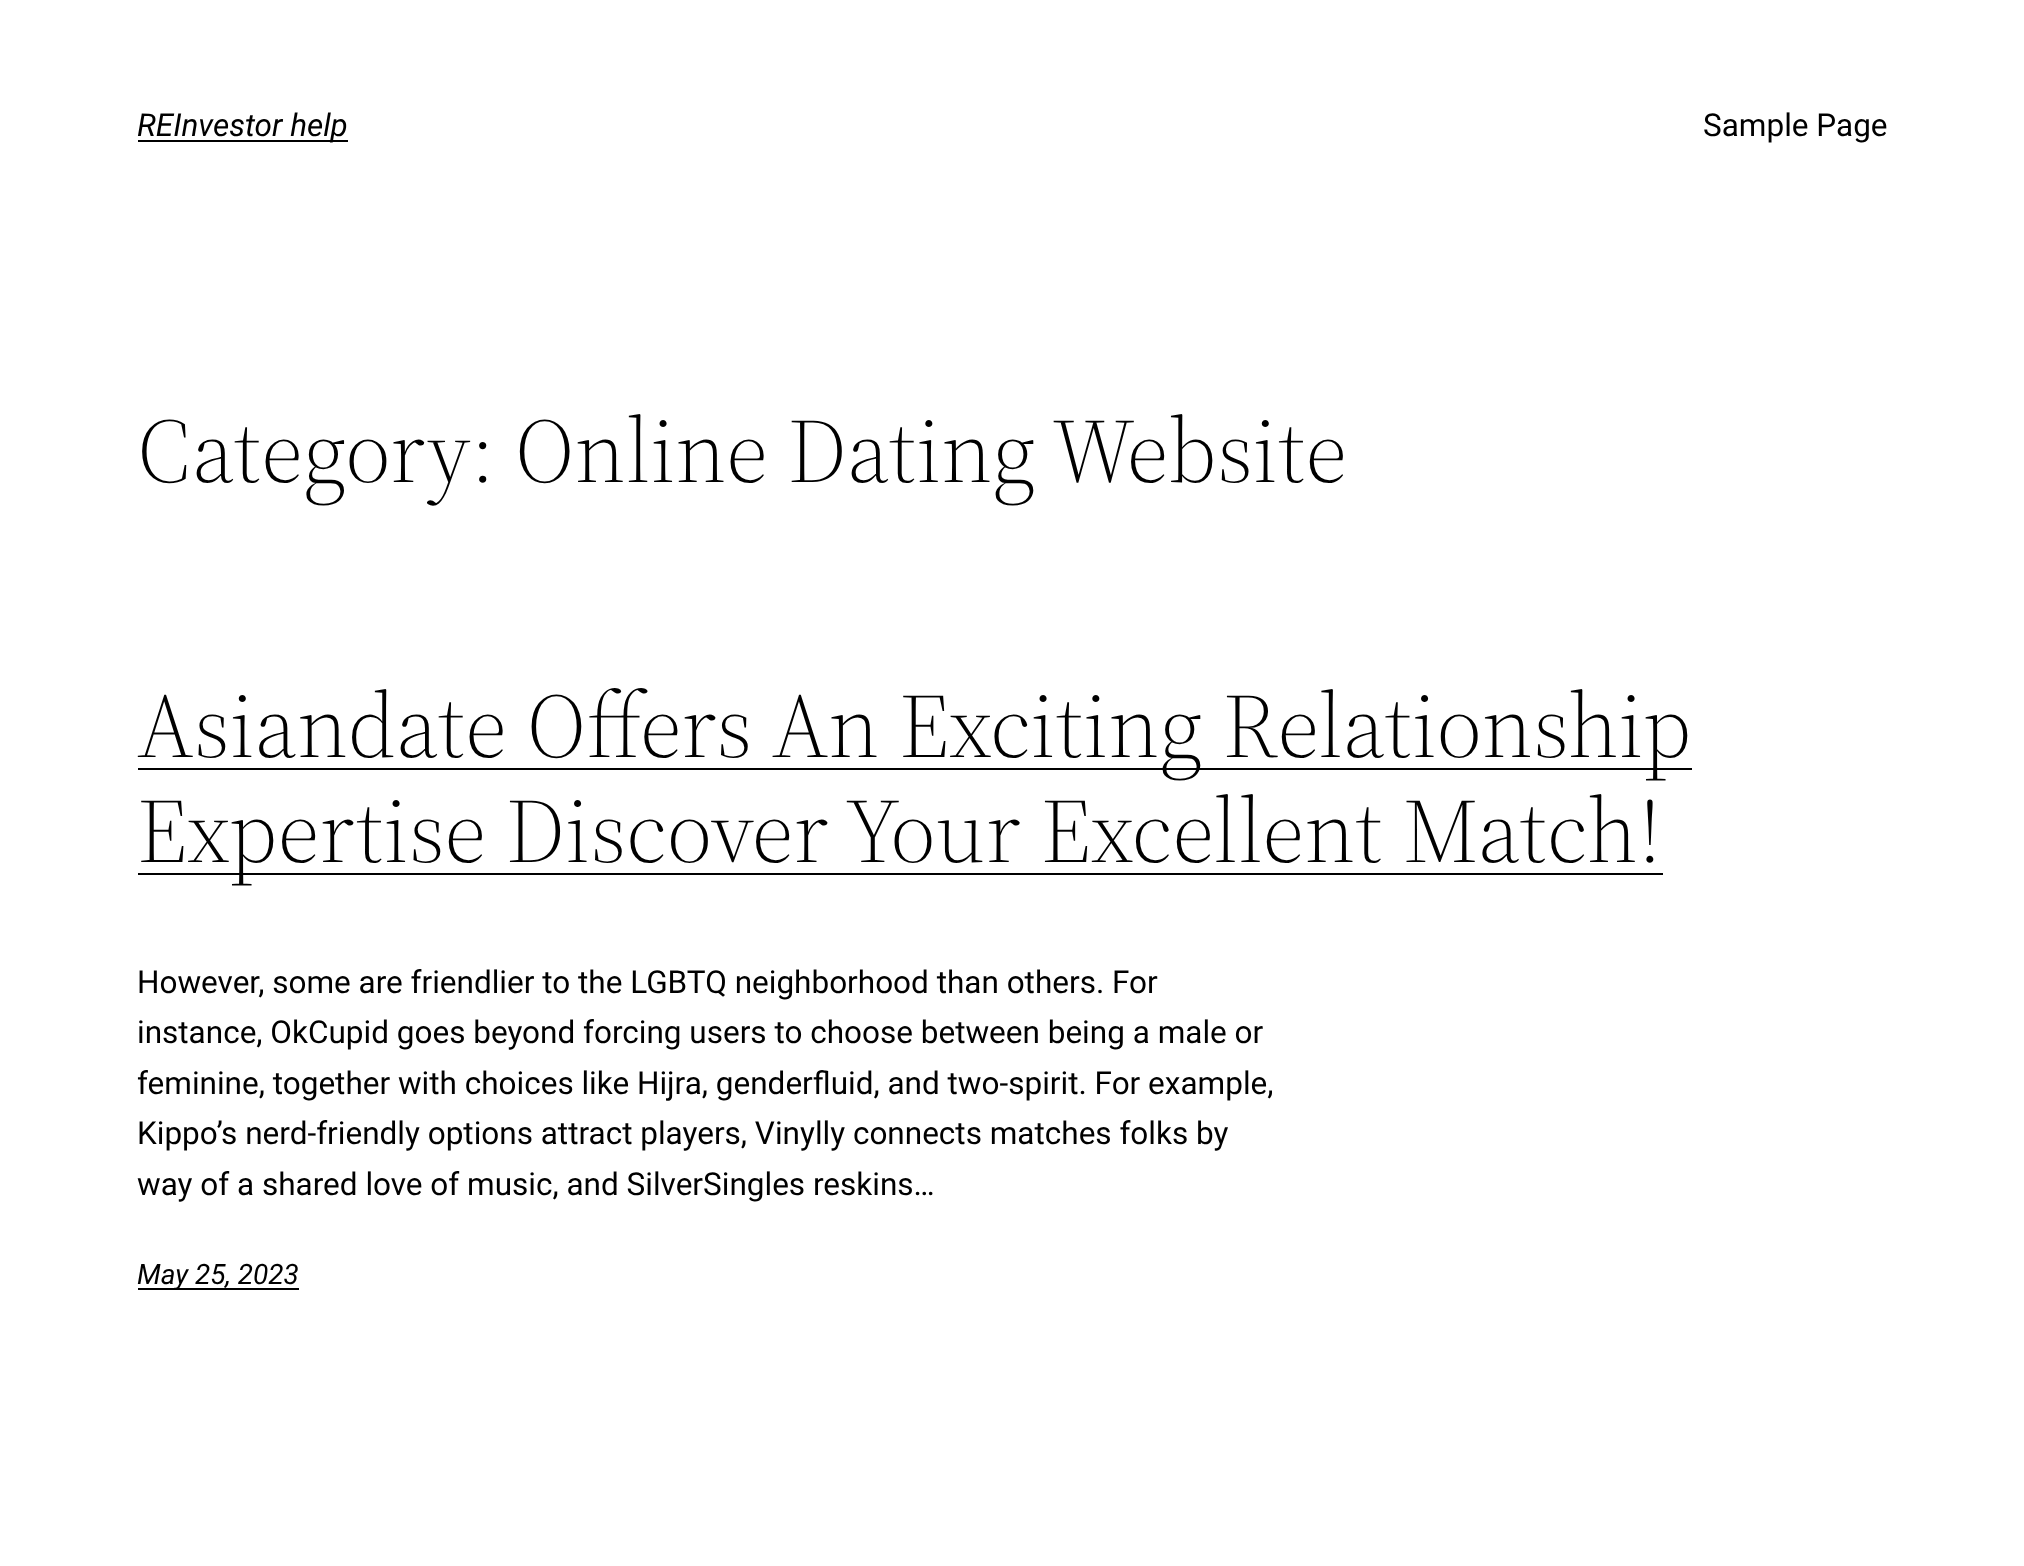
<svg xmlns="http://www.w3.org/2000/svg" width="2024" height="1566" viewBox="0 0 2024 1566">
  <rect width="100%" height="100%" fill="#ffffff"/>
  <rect x="138" y="140" width="210" height="2" fill="#000000"/>
  <text x="137" y="136" font-family="Roboto" font-size="31.5" font-style="italic" fill="#000000">REInvestor help</text>
  <text x="1703" y="136" font-family="Roboto" font-size="31.5" fill="#000000">Sample Page</text>
  <text x="137" y="482" font-family="'Source Serif 4'" font-size="91" font-weight="300" fill="#000000">Category: Online Dating Website</text>
  <rect x="138" y="768" width="1554" height="2" fill="#000000"/>
  <text x="137" y="757" font-family="'Source Serif 4'" font-size="91" font-weight="300" fill="#000000">Asiandate Offers An Exciting Relationship</text>
  <rect x="138" y="873" width="1525" height="2" fill="#000000"/>
  <text x="137" y="862" font-family="'Source Serif 4'" font-size="91" font-weight="300" fill="#000000">Expertise Discover Your Excellent Match!</text>
  <text x="137" y="993" font-family="Roboto" font-size="31.5" fill="#000000">However, some are friendlier to the LGBTQ neighborhood than others. For</text>
  <text x="137" y="1043" font-family="Roboto" font-size="31.5" fill="#000000">instance, OkCupid goes beyond forcing users to choose between being a male or</text>
  <text x="137" y="1094" font-family="Roboto" font-size="31.5" fill="#000000">feminine, together with choices like Hijra, genderfluid, and two-spirit. For example,</text>
  <text x="137" y="1144" font-family="Roboto" font-size="31.5" fill="#000000">Kippo’s nerd-friendly options attract players, Vinylly connects matches folks by</text>
  <text x="137" y="1195" font-family="Roboto" font-size="31.5" fill="#000000">way of a shared love of music, and SilverSingles reskins…</text>
  <rect x="138" y="1288" width="161" height="2" fill="#000000"/>
  <text x="137" y="1284" font-family="Roboto" font-size="28" font-style="italic" fill="#000000">May 25, 2023</text>
</svg>
